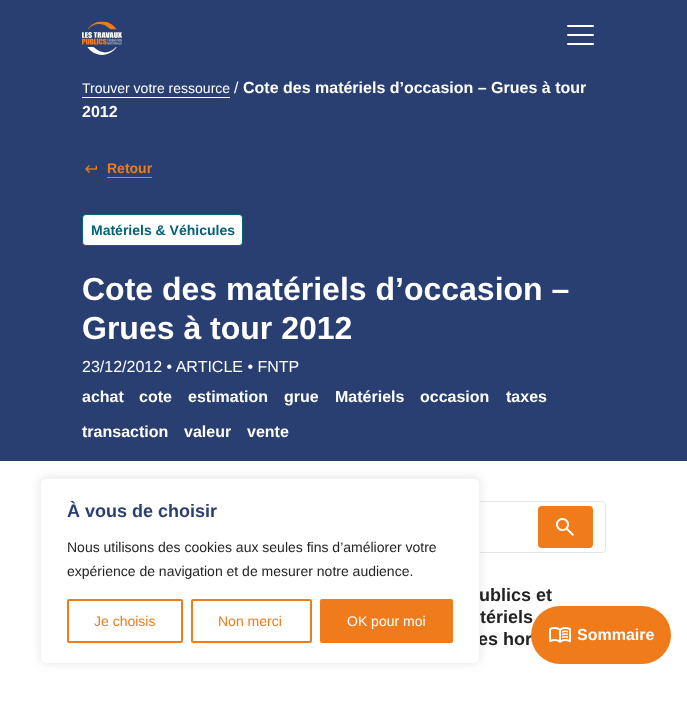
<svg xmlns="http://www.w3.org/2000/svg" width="687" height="704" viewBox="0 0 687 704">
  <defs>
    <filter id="blur1" x="-50%" y="-200%" width="200%" height="500%"><feGaussianBlur stdDeviation="5"/></filter>
  </defs>
  <rect width="100%" height="100%" fill="#293f72"/>
  <rect x="0" y="461" width="687" height="243" fill="#ffffff"/>
  <image x="82" y="21" width="40" height="34" href="img1.png"/>
  <rect x="567" y="25" width="27" height="2" rx="1" fill="#ffffff"/>
  <rect x="567" y="34" width="27" height="2" rx="1" fill="#ffffff"/>
  <rect x="567" y="43" width="27" height="2" rx="1" fill="#ffffff"/>
  <text x="82" y="93" font-family="Liberation Sans" font-size="14" fill="#ffffff">Trouver votre ressource</text>
  <rect x="82" y="97" width="148" height="1" fill="#ffffff"/>
  <text x="234" y="93" font-family="Liberation Sans" font-size="16" fill="#ffffff">/</text>
  <text x="243" y="93" font-family="Liberation Sans" font-size="16" font-weight="bold" fill="#ffffff">Cote des matériels d’occasion – Grues à tour</text>
  <text x="82" y="117" font-family="Liberation Sans" font-size="16" font-weight="bold" fill="#ffffff">2012</text>
  <image x="85" y="165" width="12" height="8" href="img2.png"/>
  <text x="107" y="173" font-family="Liberation Sans" font-size="14" font-weight="bold" fill="#ef7b1b">Retour</text>
  <rect x="107" y="177" width="45" height="1" fill="#ef7b1b"/>
  <rect x="82.5" y="214.5" width="160" height="31" rx="3.5" fill="#ffffff" stroke="#006378"/>
  <text x="91" y="235" font-family="Liberation Sans" font-size="14" font-weight="bold" fill="#006378">Matériels &amp; Véhicules</text>
  <text x="82" y="300" font-family="Liberation Sans" font-size="32" font-weight="bold" fill="#ffffff">Cote des matériels d’occasion –</text>
  <text x="82" y="339" font-family="Liberation Sans" font-size="32" font-weight="bold" fill="#ffffff">Grues à tour 2012</text>
  <text x="82" y="372" font-family="Liberation Sans" font-size="16" fill="#ffffff">23/12/2012 • ARTICLE • FNTP</text>
  <text x="82" y="402" font-family="Liberation Sans" font-size="16" font-weight="bold" fill="#ffffff">achat</text>
  <text x="139" y="402" font-family="Liberation Sans" font-size="16" font-weight="bold" fill="#ffffff">cote</text>
  <text x="188" y="402" font-family="Liberation Sans" font-size="16" font-weight="bold" fill="#ffffff">estimation</text>
  <text x="284" y="402" font-family="Liberation Sans" font-size="16" font-weight="bold" fill="#ffffff">grue</text>
  <text x="335" y="402" font-family="Liberation Sans" font-size="16" font-weight="bold" fill="#ffffff">Matériels</text>
  <text x="420" y="402" font-family="Liberation Sans" font-size="16" font-weight="bold" fill="#ffffff">occasion</text>
  <text x="506" y="402" font-family="Liberation Sans" font-size="16" font-weight="bold" fill="#ffffff">taxes</text>
  <text x="82" y="437" font-family="Liberation Sans" font-size="16" font-weight="bold" fill="#ffffff">transaction</text>
  <text x="184" y="437" font-family="Liberation Sans" font-size="16" font-weight="bold" fill="#ffffff">valeur</text>
  <text x="247" y="437" font-family="Liberation Sans" font-size="16" font-weight="bold" fill="#ffffff">vente</text>
  <rect x="82.5" y="501.5" width="523" height="51" rx="3.5" fill="none" stroke="#e5e5e5"/>
  <rect x="40" y="477" width="440" height="186" rx="6" fill="#acabab" fill-opacity="0.3" filter="url(#blur1)"/>
  <text x="480" y="623" font-family="Liberation Sans" font-size="18" font-weight="bold" fill="#232323">tériels</text>
  <text x="478" y="645" font-family="Liberation Sans" font-size="18" font-weight="bold" fill="#232323">es hor</text>
  <rect x="40.5" y="478.5" width="439" height="185" rx="5.5" fill="#ffffff" stroke="#f4f4f4"/>
  <text x="67" y="517" font-family="Liberation Sans" font-size="18" font-weight="bold" fill="#293f72">À vous de choisir</text>
  <text x="67" y="552" font-family="Liberation Sans" font-size="14" fill="#232323">Nous utilisons des cookies aux seules fins d’améliorer votre</text>
  <text x="67" y="576" font-family="Liberation Sans" font-size="14" fill="#232323">expérience de navigation et de mesurer notre audience.</text>
  <rect x="68" y="600" width="114" height="42" rx="1" fill="none" stroke="#ef7b1b" stroke-width="2"/>
  <text x="94" y="626" font-family="Liberation Sans" font-size="14" fill="#ef7b1b">Je choisis</text>
  <rect x="192" y="600" width="119" height="42" rx="1" fill="none" stroke="#ef7b1b" stroke-width="2"/>
  <text x="218" y="626" font-family="Liberation Sans" font-size="14" fill="#ef7b1b">Non merci</text>
  <rect x="321" y="600" width="131" height="42" rx="1" fill="#ef7b1b" stroke="#ef7b1b" stroke-width="2"/>
  <text x="347" y="626" font-family="Liberation Sans" font-size="14" fill="#ffffff">OK pour moi</text>
  <rect x="538" y="506" width="55" height="42" rx="4" fill="#ef7b1b"/>
  <image x="556" y="518" width="18" height="18" href="img3.png"/>
  <text x="479" y="601" font-family="Liberation Sans" font-size="18" font-weight="bold" fill="#232323">ublics et</text>
  <rect x="531" y="606" width="140" height="58" rx="29" fill="#ef7b1b"/>
  <image x="549" y="627" width="22" height="16" href="img4.png"/>
  <text x="577" y="640" font-family="Liberation Sans" font-size="16" font-weight="bold" fill="#ffffff">Sommaire</text>
</svg>
